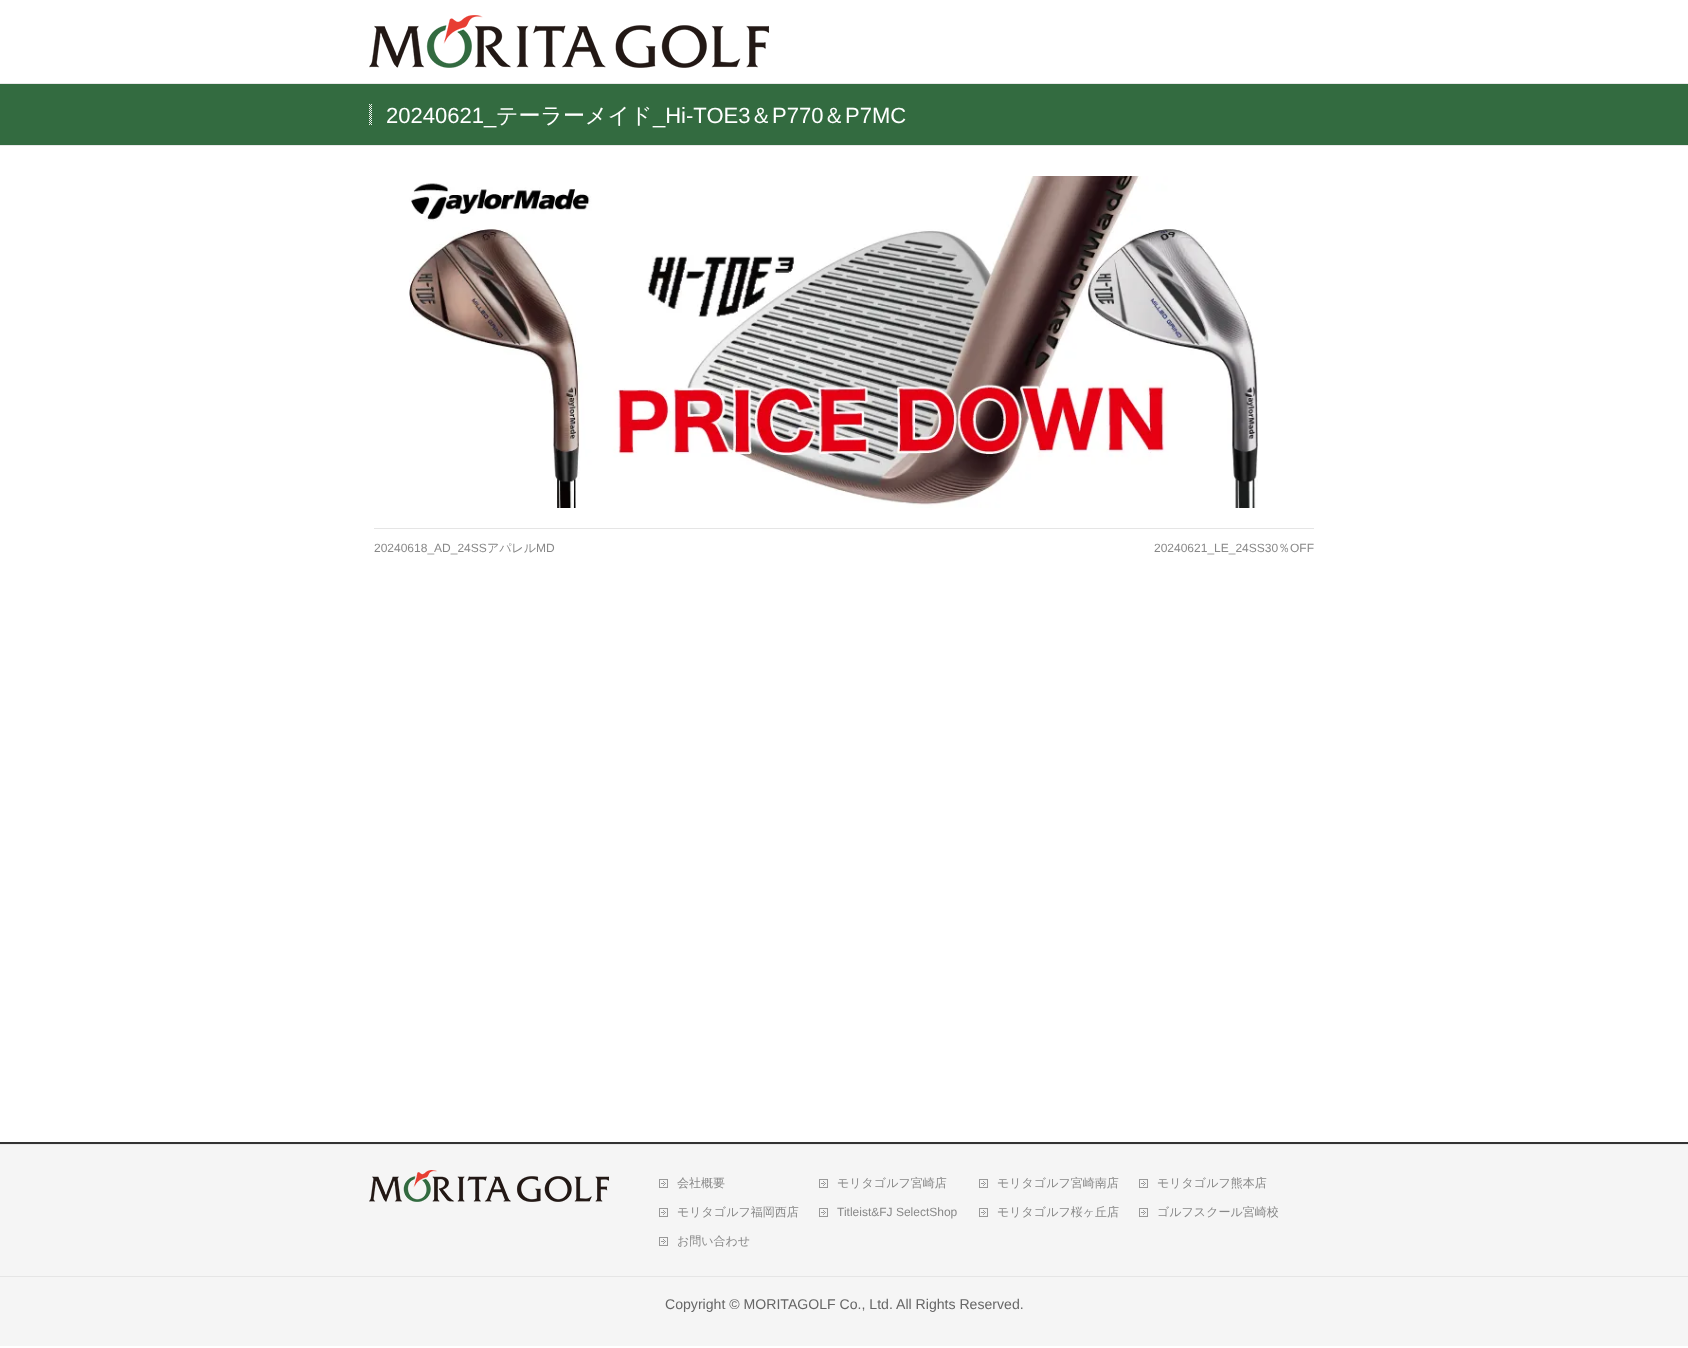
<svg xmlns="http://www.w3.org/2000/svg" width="1688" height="1348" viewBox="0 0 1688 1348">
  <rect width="100%" height="100%" fill="#ffffff"/>
  <image x="369" y="15" width="400" height="53" href="img1.png"/>
  <rect x="0" y="84" width="1688" height="61" fill="#336b40"/>
  <rect x="0" y="83" width="1688" height="1" fill="#e9e9e9"/>
  <rect x="0" y="145" width="1688" height="1" fill="#e9e9e9"/>
  <image x="369" y="104" width="3" height="21" href="img2.png"/>
  <text x="386" y="123" font-family="Liberation Sans" font-size="22" fill="#ffffff">20240621_</text>
  <text x="496" y="123" font-family="WenQuanYi Zen Hei" font-size="22" font-weight="500" fill="#ffffff">テーラーメイド</text>
  <text x="653" y="123" font-family="Liberation Sans" font-size="22" fill="#ffffff">_Hi-TOE3</text>
  <text x="750" y="123" font-family="WenQuanYi Zen Hei" font-size="22" font-weight="500" fill="#ffffff">＆</text>
  <text x="772" y="123" font-family="Liberation Sans" font-size="22" fill="#ffffff">P770</text>
  <text x="823" y="123" font-family="WenQuanYi Zen Hei" font-size="22" font-weight="500" fill="#ffffff">＆</text>
  <text x="845" y="123" font-family="Liberation Sans" font-size="22" fill="#ffffff">P7MC</text>
  <image x="409" y="176" width="849" height="332" href="img3.png"/>
  <rect x="374" y="528" width="940" height="1" fill="#e5e5e5"/>
  <text x="374" y="552" font-family="Liberation Sans" font-size="12" fill="#888888">20240618_AD_24SS</text>
  <text x="487" y="552" font-family="WenQuanYi Zen Hei" font-size="12" font-weight="500" fill="#888888">アパレル</text>
  <text x="536" y="552" font-family="Liberation Sans" font-size="12" fill="#888888">MD</text>
  <text x="1154" y="552" font-family="Liberation Sans" font-size="12" fill="#888888">20240621_LE_24SS30</text>
  <text x="1278" y="552" font-family="WenQuanYi Zen Hei" font-size="12" font-weight="500" fill="#888888">％</text>
  <text x="1290" y="552" font-family="Liberation Sans" font-size="12" fill="#888888">OFF</text>
  <rect x="0" y="1142" width="1688" height="2" fill="#333333"/>
  <rect x="0" y="1144" width="1688" height="1" fill="#e9e9e9"/>
  <rect x="0" y="1145" width="1688" height="131" fill="#f5f5f5"/>
  <image x="369" y="1170" width="240" height="32" href="img4.png"/>
  <image x="659" y="1179" width="9" height="9" href="img5.png"/>
  <text x="677" y="1187" font-family="WenQuanYi Zen Hei" font-size="12" font-weight="500" fill="#888888">会社概要</text>
  <image x="819" y="1179" width="9" height="9" href="img5.png"/>
  <text x="837" y="1187" font-family="WenQuanYi Zen Hei" font-size="12" font-weight="500" fill="#888888">モリタゴルフ宮崎店</text>
  <image x="979" y="1179" width="9" height="9" href="img5.png"/>
  <text x="997" y="1187" font-family="WenQuanYi Zen Hei" font-size="12" font-weight="500" fill="#888888">モリタゴルフ宮崎南店</text>
  <image x="1139" y="1179" width="9" height="9" href="img5.png"/>
  <text x="1157" y="1187" font-family="WenQuanYi Zen Hei" font-size="12" font-weight="500" fill="#888888">モリタゴルフ熊本店</text>
  <image x="659" y="1208" width="9" height="9" href="img5.png"/>
  <text x="677" y="1216" font-family="WenQuanYi Zen Hei" font-size="12" font-weight="500" fill="#888888">モリタゴルフ福岡西店</text>
  <image x="819" y="1208" width="9" height="9" href="img5.png"/>
  <text x="837" y="1216" font-family="Liberation Sans" font-size="12" fill="#888888">Titleist&amp;FJ SelectShop</text>
  <image x="979" y="1208" width="9" height="9" href="img5.png"/>
  <text x="997" y="1216" font-family="WenQuanYi Zen Hei" font-size="12" font-weight="500" fill="#888888">モリタゴルフ桜ヶ丘店</text>
  <image x="1139" y="1208" width="9" height="9" href="img5.png"/>
  <text x="1157" y="1216" font-family="WenQuanYi Zen Hei" font-size="12" font-weight="500" fill="#888888">ゴルフスクール宮崎校</text>
  <image x="659" y="1237" width="9" height="9" href="img5.png"/>
  <text x="677" y="1245" font-family="WenQuanYi Zen Hei" font-size="12" font-weight="500" fill="#888888">お問い合わせ</text>
  <rect x="0" y="1277" width="1688" height="69" fill="#f5f5f5"/>
  <rect x="0" y="1276" width="1688" height="1" fill="#e5e5e5"/>
  <text x="665" y="1309" font-family="Liberation Sans" font-size="14.1" fill="#666666">Copyright © MORITAGOLF Co., Ltd.</text>
  <text x="896" y="1309" font-family="Liberation Sans" font-size="14.1" fill="#666666">All Rights Reserved.</text>
</svg>
